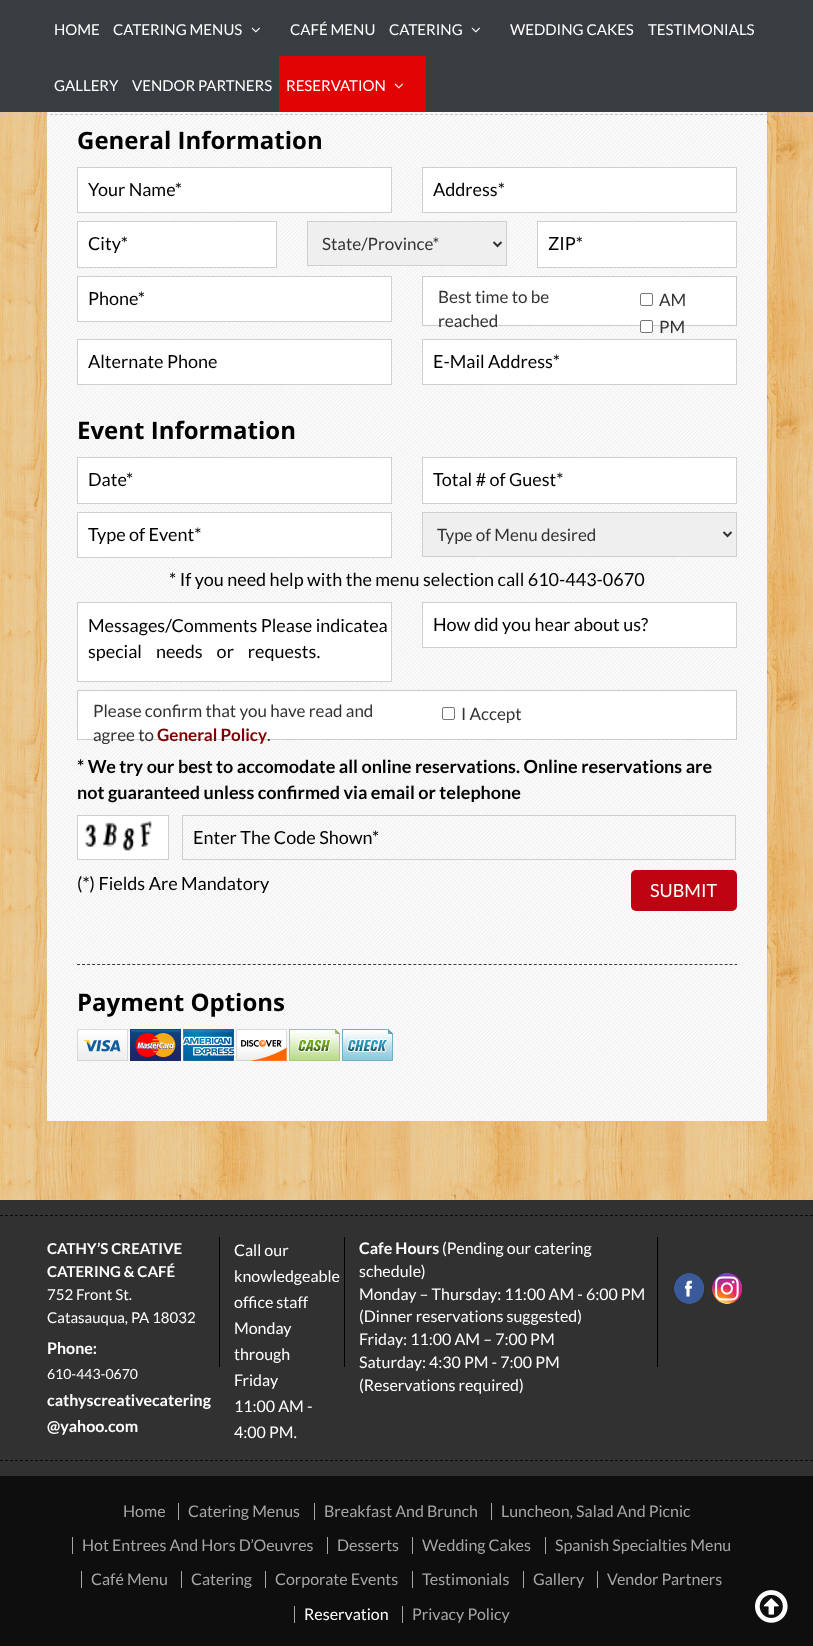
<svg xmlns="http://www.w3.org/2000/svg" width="813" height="1646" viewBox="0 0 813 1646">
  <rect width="100%" height="100%" fill="#ffffff"/>
  <image x="0" y="112" width="813" height="1088" href="img1.png"/>
  <rect x="0" y="0" width="813" height="112" fill="#383d41"/>
  <text x="54" y="35" font-family="Lato" font-size="15" fill="#ffffff">HOME</text>
  <text x="113" y="35" font-family="Lato" font-size="15" fill="#ffffff">CATERING MENUS</text>
  <image x="251" y="27" width="9" height="6" href="img2.png"/>
  <text x="290" y="35" font-family="Lato" font-size="15" fill="#ffffff">CAFÉ MENU</text>
  <text x="389" y="35" font-family="Lato" font-size="15" fill="#ffffff">CATERING</text>
  <image x="471" y="27" width="9" height="6" href="img2.png"/>
  <text x="510" y="35" font-family="Lato" font-size="15" fill="#ffffff">WEDDING CAKES</text>
  <text x="648" y="35" font-family="Lato" font-size="15" fill="#ffffff">TESTIMONIALS</text>
  <text x="54" y="91" font-family="Lato" font-size="15" fill="#ffffff">GALLERY</text>
  <text x="132" y="91" font-family="Lato" font-size="15" fill="#ffffff">VENDOR PARTNERS</text>
  <rect x="279" y="56" width="147" height="56" fill="#e20404"/>
  <text x="286" y="91" font-family="Lato" font-size="15" fill="#ffffff">RESERVATION</text>
  <image x="394" y="83" width="9" height="6" href="img3.png"/>
  <image x="47" y="112" width="720" height="1009" href="img4.png"/>
  <path d="M0 114.5H813" fill="none" stroke="#cacaca" stroke-dasharray="3 2"/>
  <text x="77" y="149" font-family="Open Sans" font-size="24" font-weight="bold" fill="#000000">General Information</text>
  <rect x="77.5" y="167.5" width="314" height="45" fill="#ffffff" stroke="#cfcfcf"/>
  <text x="88" y="196" font-family="Lato" font-size="18" fill="#000000">Your Name*</text>
  <rect x="422.5" y="167.5" width="314" height="45" fill="#ffffff" stroke="#cfcfcf"/>
  <text x="433" y="196" font-family="Lato" font-size="18" fill="#000000">Address*</text>
  <rect x="77.5" y="221.5" width="199" height="46" fill="#ffffff" stroke="#cfcfcf"/>
  <text x="88" y="250" font-family="Lato" font-size="18" fill="#000000">City*</text>
  <rect x="307.5" y="221.5" width="199" height="44" fill="#efefef" stroke="#cfcfcf"/>
  <path d="M493.5 242L497.5 246L501.5 242" fill="none" stroke="#333333" stroke-width="2"/>
  <text x="322" y="250" font-family="Lato" font-size="17" fill="#333333">State/Province*</text>
  <rect x="537.5" y="221.5" width="199" height="46" fill="#ffffff" stroke="#cfcfcf"/>
  <text x="548" y="250" font-family="Lato" font-size="18" fill="#000000">ZIP*</text>
  <rect x="77.5" y="276.5" width="314" height="45" fill="#ffffff" stroke="#cfcfcf"/>
  <text x="88" y="305" font-family="Lato" font-size="18" fill="#000000">Phone*</text>
  <rect x="422.5" y="276.5" width="314" height="49" fill="#ffffff" stroke="#cccccc"/>
  <text x="438" y="303" font-family="Lato" font-size="17" fill="#333333">Best time to be</text>
  <text x="438" y="327" font-family="Lato" font-size="17" fill="#333333">reached</text>
  <rect x="640.5" y="293.5" width="12" height="12" rx="1.5" fill="none" stroke="#767676"/>
  <text x="659" y="306" font-family="Lato" font-size="17" fill="#333333">AM</text>
  <rect x="640.5" y="320.5" width="12" height="12" rx="1.5" fill="#ffffff" stroke="#767676"/>
  <text x="659" y="333" font-family="Lato" font-size="17" fill="#333333">PM</text>
  <rect x="77.5" y="339.5" width="314" height="45" fill="#ffffff" stroke="#cfcfcf"/>
  <text x="88" y="368" font-family="Lato" font-size="18" fill="#000000">Alternate Phone</text>
  <rect x="422.5" y="339.5" width="314" height="45" fill="#ffffff" stroke="#cfcfcf"/>
  <text x="433" y="368" font-family="Lato" font-size="18" fill="#000000">E-Mail Address*</text>
  <text x="77" y="439" font-family="Open Sans" font-size="24" font-weight="bold" fill="#000000">Event Information</text>
  <rect x="77.5" y="457.5" width="314" height="46" fill="#ffffff" stroke="#cfcfcf"/>
  <text x="88" y="486" font-family="Lato" font-size="18" fill="#000000">Date*</text>
  <rect x="422.5" y="457.5" width="314" height="46" fill="#ffffff" stroke="#cfcfcf"/>
  <text x="433" y="486" font-family="Lato" font-size="18" fill="#000000">Total # of Guest*</text>
  <rect x="77.5" y="512.5" width="314" height="45" fill="#ffffff" stroke="#cfcfcf"/>
  <text x="88" y="541" font-family="Lato" font-size="18" fill="#000000">Type of Event*</text>
  <rect x="422.5" y="512.5" width="314" height="44" fill="#efefef" stroke="#cfcfcf"/>
  <path d="M723.5 532L727.5 536L731.5 532" fill="none" stroke="#333333" stroke-width="2"/>
  <text x="437" y="541" font-family="Lato" font-size="17" fill="#333333">Type of Menu desired</text>
  <text x="169" y="586" font-family="Lato" font-size="18" fill="#000000">* If you need help with the menu selection call 610-443-0670</text>
  <rect x="77.5" y="602.5" width="314" height="79" fill="#ffffff" stroke="#cfcfcf"/>
  <text x="88" y="632" font-family="Lato" font-size="18" fill="#000000">Messages/Comments Please indicatea</text>
  <text x="88" y="658" word-spacing="10.5" font-family="Lato" font-size="18" fill="#000000">special needs or requests.</text>
  <rect x="422.5" y="602.5" width="314" height="45" fill="#ffffff" stroke="#cfcfcf"/>
  <text x="433" y="631" font-family="Lato" font-size="18" fill="#000000">How did you hear about us?</text>
  <rect x="77.5" y="690.5" width="659" height="49" fill="#ffffff" stroke="#cccccc"/>
  <text x="93" y="717" font-family="Lato" font-size="17" fill="#333333">Please confirm that you have read and</text>
  <text x="93" y="741" font-family="Lato" font-size="17" fill="#333333">agree to</text>
  <text x="157" y="741" font-family="Lato" font-size="17" font-weight="bold" fill="#7f0000">General Policy</text>
  <text x="267" y="741" font-family="Lato" font-size="17" fill="#333333">.</text>
  <rect x="442.5" y="707.5" width="12" height="12" rx="1.5" fill="none" stroke="#767676"/>
  <text x="461" y="720" font-family="Lato" font-size="17" fill="#333333">I Accept</text>
  <text x="77" y="773" font-family="Lato" font-size="18" font-weight="bold" fill="#000000">* We try our best to accomodate all online reservations. Online reservations are</text>
  <text x="77" y="799" font-family="Lato" font-size="18" font-weight="bold" fill="#000000">not guaranteed unless confirmed via email or telephone</text>
  <rect x="77.5" y="815.5" width="91" height="44" fill="none" stroke="#cfcfcf"/>
  <image x="78" y="816" width="90" height="43" href="img5.png"/>
  <rect x="182.5" y="815.5" width="553" height="44" fill="none" stroke="#cfcfcf"/>
  <text x="193" y="844" font-family="Lato" font-size="18" fill="#000000">Enter The Code Shown*</text>
  <text x="77" y="890" font-family="Lato" font-size="18" fill="#000000">(*) Fields Are Mandatory</text>
  <rect x="631" y="870" width="106" height="41" rx="5" fill="#be0211"/>
  <text x="650" y="897" font-family="Lato" font-size="18" fill="#ffffff">SUBMIT</text>
  <path d="M77 964.5H737" fill="none" stroke="#383d41" stroke-dasharray="3 2.02"/>
  <text x="77" y="1011" font-family="Open Sans" font-size="24" font-weight="bold" fill="#000000">Payment Options</text>
  <image x="77" y="1029" width="316" height="32" href="img6.png"/>
  <rect x="0" y="1200" width="813" height="276" fill="#313131"/>
  <path d="M0 1215.5H813" fill="none" stroke="#0a0a0a" stroke-dasharray="3 2"/>
  <path d="M0 1460.5H813" fill="none" stroke="#0a0a0a" stroke-dasharray="3 2"/>
  <text x="47" y="1254" font-family="Lato" font-size="15" font-weight="bold" fill="#ffffff">CATHY’S CREATIVE</text>
  <text x="47" y="1277" font-family="Lato" font-size="15" font-weight="bold" fill="#ffffff">CATERING &amp; CAFÉ</text>
  <text x="47" y="1300" font-family="Lato" font-size="15" fill="#ffffff">752 Front St.</text>
  <text x="47" y="1323" font-family="Lato" font-size="15" fill="#ffffff">Catasauqua, PA 18032</text>
  <text x="47" y="1354" font-family="Lato" font-size="16" font-weight="bold" fill="#ffffff">Phone:</text>
  <text x="47" y="1379" font-family="Lato" font-size="14" fill="#ffffff">610-443-0670</text>
  <text x="47" y="1406" font-family="Lato" font-size="16" font-weight="bold" fill="#ffffff">cathyscreativecatering</text>
  <text x="47" y="1432" font-family="Lato" font-size="16" font-weight="bold" fill="#ffffff">@yahoo.com</text>
  <rect x="219" y="1237" width="1" height="130" fill="#000000"/>
  <text x="234" y="1256" font-family="Lato" font-size="16" fill="#ffffff">Call our</text>
  <text x="234" y="1282" font-family="Lato" font-size="16" fill="#ffffff">knowledgeable</text>
  <text x="234" y="1308" font-family="Lato" font-size="16" fill="#ffffff">office staff</text>
  <text x="234" y="1334" font-family="Lato" font-size="16" fill="#ffffff">Monday</text>
  <text x="234" y="1360" font-family="Lato" font-size="16" fill="#ffffff">through</text>
  <text x="234" y="1386" font-family="Lato" font-size="16" fill="#ffffff">Friday</text>
  <text x="234" y="1412" font-family="Lato" font-size="16" fill="#ffffff">11:00 AM -</text>
  <text x="234" y="1438" font-family="Lato" font-size="16" fill="#ffffff">4:00 PM.</text>
  <rect x="344" y="1237" width="1" height="130" fill="#000000"/>
  <text x="359" y="1254" font-family="Lato" font-size="16" font-weight="bold" fill="#ffffff">Cafe Hours</text>
  <text x="442" y="1254" font-family="Lato" font-size="16" fill="#ffffff">(Pending our catering</text>
  <text x="359" y="1277" font-family="Lato" font-size="16" fill="#ffffff">schedule)</text>
  <text x="359" y="1300" font-family="Lato" font-size="16" fill="#ffffff">Monday – Thursday: 11:00 AM - 6:00 PM</text>
  <text x="359" y="1322" font-family="Lato" font-size="16" fill="#ffffff">(Dinner reservations suggested)</text>
  <text x="359" y="1345" font-family="Lato" font-size="16" fill="#ffffff">Friday: 11:00 AM – 7:00 PM</text>
  <text x="359" y="1368" font-family="Lato" font-size="16" fill="#ffffff">Saturday: 4:30 PM - 7:00 PM</text>
  <text x="359" y="1391" font-family="Lato" font-size="16" fill="#ffffff">(Reservations required)</text>
  <rect x="657" y="1237" width="1" height="130" fill="#000000"/>
  <image x="674" y="1273" width="31" height="31" href="img7.png"/>
  <image x="712" y="1273" width="31" height="31" href="img8.png"/>
  <rect x="0" y="1476" width="813" height="170" fill="#0e0e0e"/>
  <text x="123" y="1517" font-family="Lato" font-size="16" fill="#a6a6a6">Home</text>
  <rect x="178" y="1503" width="1" height="17" fill="#a6a6a6"/>
  <text x="188" y="1517" font-family="Lato" font-size="16" fill="#a6a6a6">Catering Menus</text>
  <rect x="314" y="1503" width="1" height="17" fill="#a6a6a6"/>
  <text x="324" y="1517" font-family="Lato" font-size="16" fill="#a6a6a6">Breakfast And Brunch</text>
  <rect x="491" y="1503" width="1" height="17" fill="#a6a6a6"/>
  <text x="501" y="1517" font-family="Lato" font-size="16" fill="#a6a6a6">Luncheon, Salad And Picnic</text>
  <rect x="72" y="1537" width="1" height="17" fill="#a6a6a6"/>
  <text x="82" y="1551" font-family="Lato" font-size="16" fill="#a6a6a6">Hot Entrees And Hors D’Oeuvres</text>
  <rect x="327" y="1537" width="1" height="17" fill="#a6a6a6"/>
  <text x="337" y="1551" font-family="Lato" font-size="16" fill="#a6a6a6">Desserts</text>
  <rect x="412" y="1537" width="1" height="17" fill="#a6a6a6"/>
  <text x="422" y="1551" font-family="Lato" font-size="16" fill="#a6a6a6">Wedding Cakes</text>
  <rect x="545" y="1537" width="1" height="17" fill="#a6a6a6"/>
  <text x="555" y="1551" font-family="Lato" font-size="16" fill="#a6a6a6">Spanish Specialties Menu</text>
  <rect x="81" y="1571" width="1" height="17" fill="#a6a6a6"/>
  <text x="91" y="1585" font-family="Lato" font-size="16" fill="#a6a6a6">Café Menu</text>
  <rect x="181" y="1571" width="1" height="17" fill="#a6a6a6"/>
  <text x="191" y="1585" font-family="Lato" font-size="16" fill="#a6a6a6">Catering</text>
  <rect x="265" y="1571" width="1" height="17" fill="#a6a6a6"/>
  <text x="275" y="1585" font-family="Lato" font-size="16" fill="#a6a6a6">Corporate Events</text>
  <rect x="412" y="1571" width="1" height="17" fill="#a6a6a6"/>
  <text x="422" y="1585" font-family="Lato" font-size="16" fill="#a6a6a6">Testimonials</text>
  <rect x="523" y="1571" width="1" height="17" fill="#a6a6a6"/>
  <text x="533" y="1585" font-family="Lato" font-size="16" fill="#a6a6a6">Gallery</text>
  <rect x="597" y="1571" width="1" height="17" fill="#a6a6a6"/>
  <text x="607" y="1585" font-family="Lato" font-size="16" fill="#a6a6a6">Vendor Partners</text>
  <rect x="294" y="1606" width="1" height="17" fill="#a6a6a6"/>
  <text x="304" y="1620" font-family="Lato" font-size="16" fill="#ffffff">Reservation</text>
  <rect x="402" y="1606" width="1" height="17" fill="#a6a6a6"/>
  <text x="412" y="1620" font-family="Lato" font-size="16" fill="#a6a6a6">Privacy Policy</text>
  <image x="755" y="1590" width="33" height="33" href="img9.png"/>
</svg>
